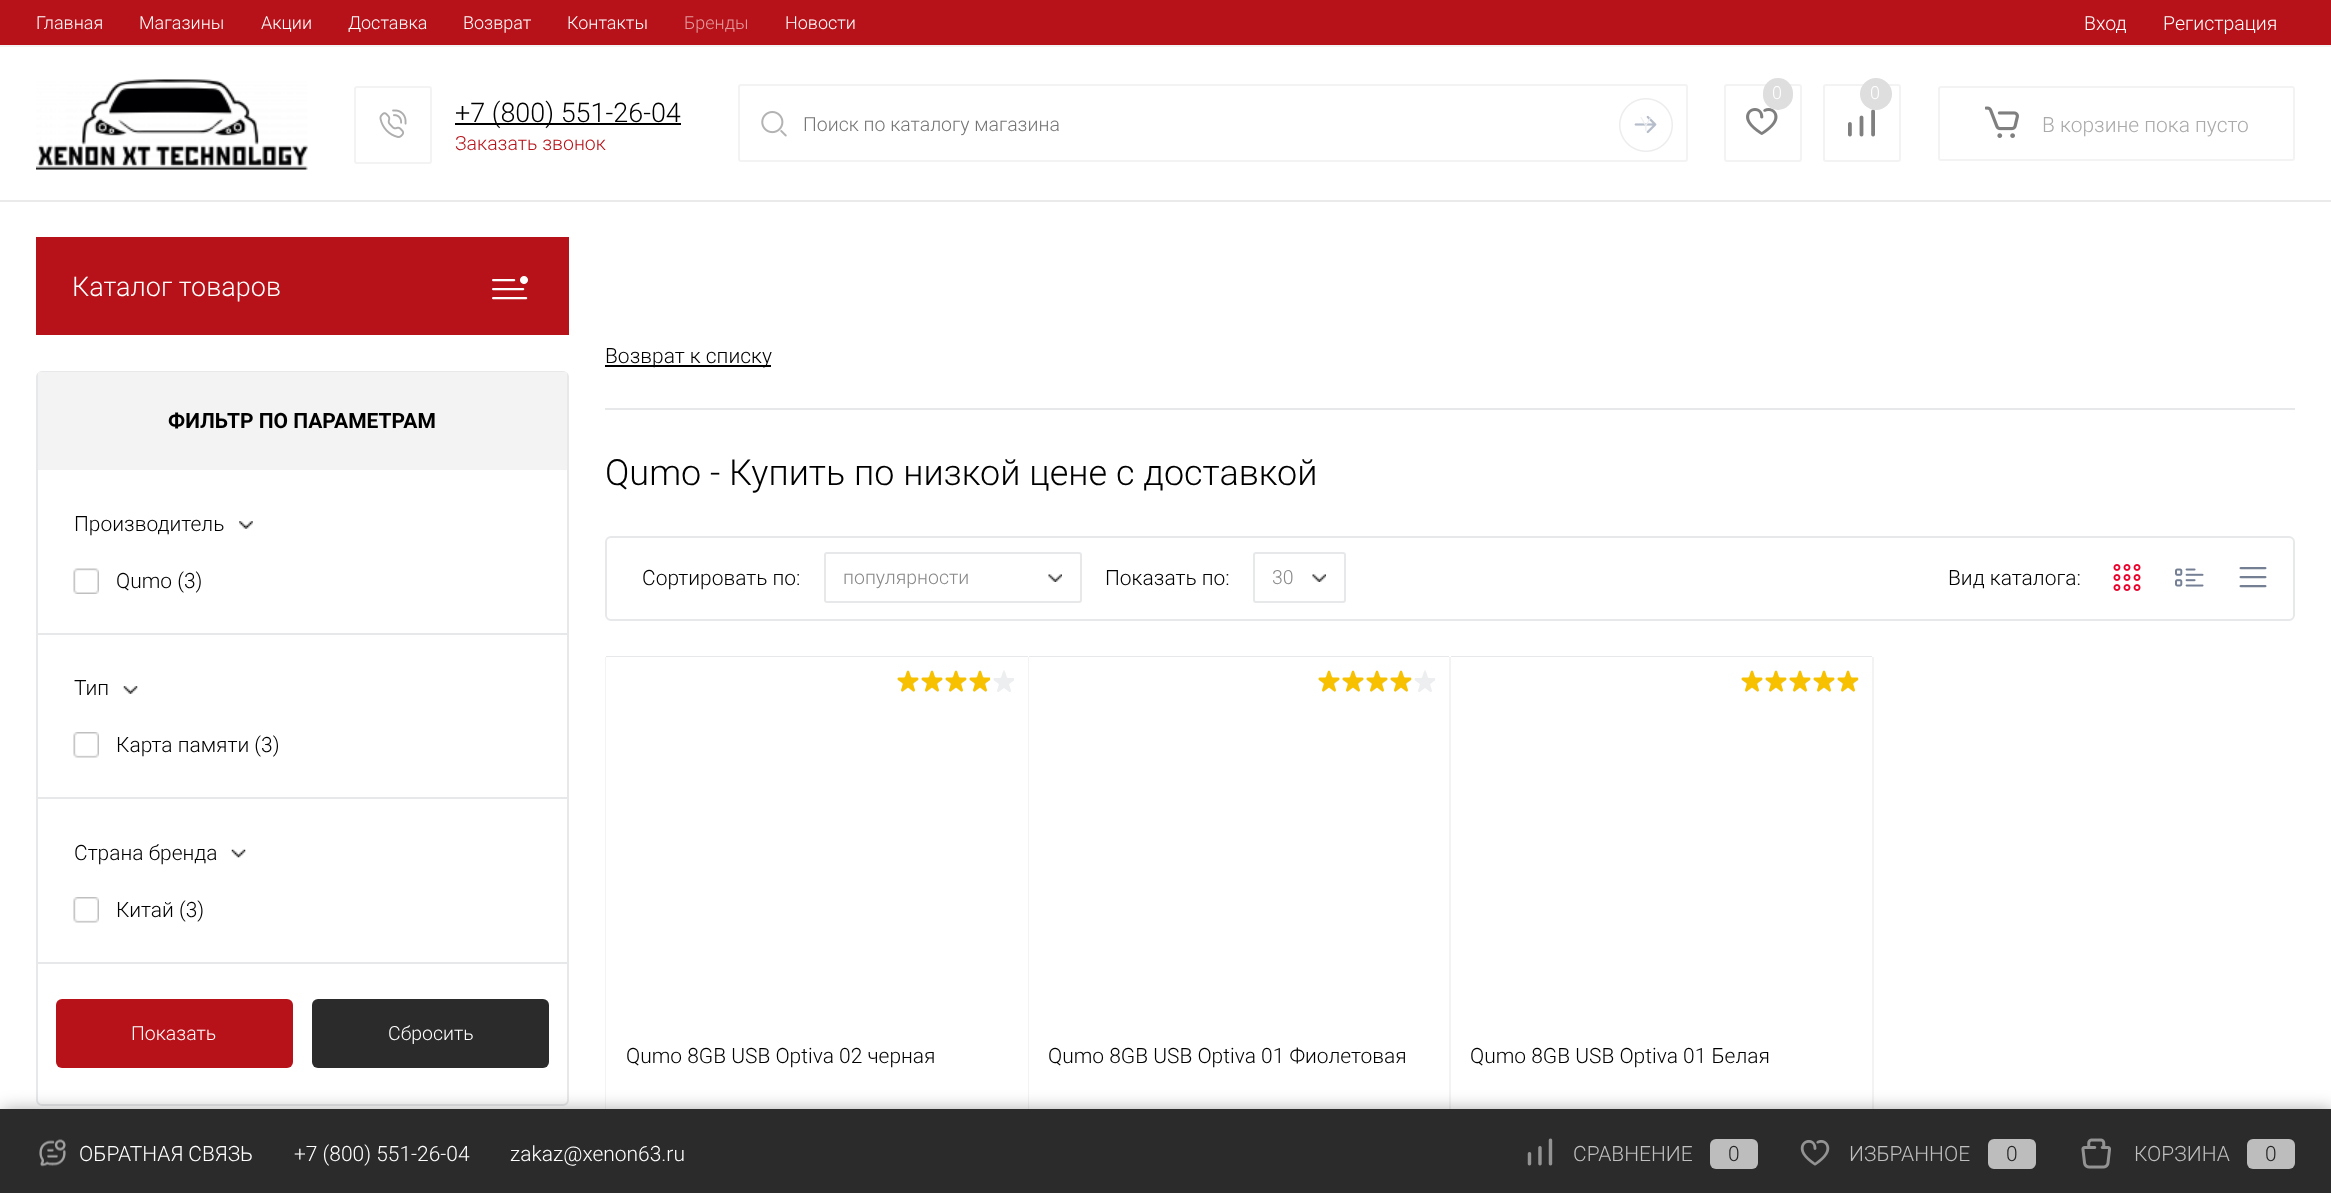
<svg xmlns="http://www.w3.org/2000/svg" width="2331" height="1193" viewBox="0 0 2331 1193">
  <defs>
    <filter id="blur1" x="-50%" y="-200%" width="200%" height="500%"><feGaussianBlur stdDeviation="9"/></filter>
  </defs>
  <rect width="100%" height="100%" fill="#ffffff"/>
  <rect x="0" y="0" width="2331" height="45" fill="#b71219"/>
  <text x="36" y="29" font-family="Roboto" font-size="18" font-weight="300" fill="#ffffff">Главная</text>
  <text x="139" y="29" font-family="Roboto" font-size="18" font-weight="300" fill="#ffffff">Магазины</text>
  <text x="261" y="29" font-family="Roboto" font-size="18" font-weight="300" fill="#ffffff">Акции</text>
  <text x="348" y="29" font-family="Roboto" font-size="18" font-weight="300" fill="#ffffff">Доставка</text>
  <text x="463" y="29" font-family="Roboto" font-size="18" font-weight="300" fill="#ffffff">Возврат</text>
  <text x="567" y="29" font-family="Roboto" font-size="18" font-weight="300" fill="#ffffff">Контакты</text>
  <text x="684" y="29" font-family="Roboto" font-size="18" font-weight="300" fill="#e19b9e">Бренды</text>
  <text x="785" y="29" font-family="Roboto" font-size="18" font-weight="300" fill="#ffffff">Новости</text>
  <text x="2084" y="30" font-family="Roboto" font-size="19.5" font-weight="300" fill="#ffffff">Вход</text>
  <text x="2163" y="30" font-family="Roboto" font-size="19.5" font-weight="300" fill="#ffffff">Регистрация</text>
  <rect x="0" y="45" width="2331" height="2" fill="#f3f3f3"/>
  <rect x="0" y="200" width="2331" height="2" fill="#eaeaea"/>
  <image x="36" y="79" width="272" height="91" href="img1.png"/>
  <image x="379" y="109" width="28" height="29" href="img2.png"/>
  <rect x="355" y="87" width="76" height="76" rx="2" fill="none" stroke="#f3f3f3" stroke-width="2"/>
  <rect x="455" y="123" width="226" height="2" fill="#000000"/>
  <text x="455" y="122" font-family="Roboto" font-size="27" font-weight="300" fill="#000000">+7 (800) 551-26-04</text>
  <text x="455" y="150" font-family="Roboto" font-size="19.5" font-weight="300" fill="#b71219">Заказать звонок</text>
  <rect x="739" y="85" width="948" height="76" rx="2" fill="none" stroke="#f3f3f3" stroke-width="2"/>
  <image x="761" y="111" width="26" height="26" href="img3.png"/>
  <text x="803" y="131" font-family="Roboto" font-size="19.5" font-weight="300" fill="#757575">Поиск по каталогу магазина</text>
  <image x="1619" y="98" width="54" height="54" href="img4.png"/>
  <text x="1640" y="131" font-family="Roboto" font-size="19.5" font-weight="300" fill="#edeff2">Y</text>
  <image x="1746" y="108" width="32" height="27" href="img5.png"/>
  <rect x="1725" y="85" width="76" height="76" rx="2" fill="none" stroke="#f3f3f3" stroke-width="2"/>
  <rect x="1763" y="78" width="30" height="32" rx="15" fill="#dedede"/>
  <text x="1772" y="99" font-family="Roboto" font-size="18" font-weight="300" fill="#ffffff">0</text>
  <image x="1848" y="109" width="27" height="28" href="img6.png"/>
  <rect x="1824" y="85" width="76" height="76" rx="2" fill="none" stroke="#f3f3f3" stroke-width="2"/>
  <circle cx="1876" cy="94" r="16" fill="#dedede"/>
  <text x="1870" y="99" font-family="Roboto" font-size="18" font-weight="300" fill="#ffffff">0</text>
  <rect x="1939" y="87" width="355" height="73" rx="2" fill="none" stroke="#f3f3f3" stroke-width="2"/>
  <image x="1985" y="106" width="34" height="32" href="img7.png"/>
  <text x="2042" y="132" font-family="Roboto" font-size="21" font-weight="300" fill="#aaaaaa">В корзине пока пусто</text>
  <rect x="36" y="237" width="533" height="98" fill="#b71219"/>
  <text x="72" y="296" font-family="Roboto" font-size="27" font-weight="300" fill="#ffffff">Каталог товаров</text>
  <image x="492" y="276" width="36" height="24" href="img8.png"/>
  <rect x="37" y="372" width="531" height="733" rx="5" fill="none" stroke="#e7e8ea" stroke-width="2"/>
  <rect x="38" y="372" width="529" height="98" fill="#f3f3f3"/>
  <text x="168" y="428" font-family="Roboto" font-size="21" font-weight="bold" fill="#000000">ФИЛЬТР ПО ПАРАМЕТРАМ</text>
  <rect x="38" y="633" width="529" height="2" fill="#e7e8ea"/>
  <text x="74" y="531" font-family="Roboto" font-size="21" font-weight="300" fill="#000000">Производитель</text>
  <image x="239" y="521" width="14" height="8" href="img9.png"/>
  <image x="73" y="568" width="26" height="26" href="img10.png"/>
  <text x="116" y="588" font-family="Roboto" font-size="21" font-weight="300" fill="#000000">Qumo (3)</text>
  <rect x="38" y="797" width="529" height="2" fill="#e7e8ea"/>
  <text x="74" y="695" font-family="Roboto" font-size="21" font-weight="300" fill="#000000">Тип</text>
  <image x="123" y="686" width="15" height="8" href="img11.png"/>
  <image x="73" y="732" width="26" height="26" href="img12.png"/>
  <text x="116" y="752" font-family="Roboto" font-size="21" font-weight="300" fill="#000000">Карта памяти (3)</text>
  <rect x="38" y="962" width="529" height="2" fill="#e7e8ea"/>
  <text x="74" y="860" font-family="Roboto" font-size="21" font-weight="300" fill="#000000">Страна бренда</text>
  <image x="231" y="849" width="15" height="9" href="img13.png"/>
  <image x="73" y="897" width="26" height="26" href="img12.png"/>
  <text x="116" y="917" font-family="Roboto" font-size="21" font-weight="300" fill="#000000">Китай (3)</text>
  <rect x="56" y="999" width="237" height="69" rx="6" fill="#b71219"/>
  <text x="131" y="1040" font-family="Roboto" font-size="19.5" font-weight="300" fill="#ffffff">Показать</text>
  <rect x="312" y="999" width="237" height="69" rx="6" fill="#2b2b2b"/>
  <text x="388" y="1040" font-family="Roboto" font-size="19.5" font-weight="300" fill="#ffffff">Сбросить</text>
  <rect x="605" y="365" width="166" height="2" fill="#000000"/>
  <text x="605" y="363" font-family="Roboto" font-size="21" font-weight="300" fill="#000000">Возврат к списку</text>
  <rect x="605" y="408" width="1690" height="2" fill="#e7e8ea"/>
  <text x="605" y="485" font-family="Roboto" font-size="36" font-weight="300" fill="#000000">Qumo - Купить по низкой цене с доставкой</text>
  <rect x="606" y="537" width="1688" height="83" rx="5" fill="none" stroke="#e7e8ea" stroke-width="2"/>
  <text x="642" y="585" font-family="Roboto" font-size="21" font-weight="300" fill="#000000">Сортировать по:</text>
  <rect x="825" y="553" width="256" height="49" rx="2" fill="none" stroke="#e7e8ea" stroke-width="2"/>
  <text x="843" y="584" font-family="Roboto" font-size="19.5" font-weight="300" fill="#888888">популярности</text>
  <image x="1048" y="574" width="14" height="8" href="img14.png"/>
  <text x="1105" y="585" font-family="Roboto" font-size="21" font-weight="300" fill="#000000">Показать по:</text>
  <rect x="1254" y="553" width="91" height="49" rx="2" fill="none" stroke="#e7e8ea" stroke-width="2"/>
  <text x="1272" y="584" font-family="Roboto" font-size="19.5" font-weight="300" fill="#888888">30</text>
  <image x="1312" y="574" width="14" height="8" href="img14.png"/>
  <text x="1948" y="585" font-family="Roboto" font-size="21" font-weight="300" fill="#000000">Вид каталога:</text>
  <image x="2113" y="564" width="28" height="27" href="img15.png"/>
  <image x="2175" y="568" width="29" height="19" href="img16.png"/>
  <image x="2239" y="567" width="28" height="21" href="img17.png"/>
  <rect x="605" y="657" width="1" height="452" fill="#f3f3f3"/>
  <rect x="1028" y="657" width="1" height="452" fill="#f3f3f3"/>
  <rect x="606" y="656" width="422" height="1" fill="#e7e8ea"/>
  <image x="897" y="670" width="117" height="22" href="img18.png"/>
  <image x="897" y="670" width="93" height="22" href="img19.png"/>
  <text x="626" y="1063" font-family="Roboto" font-size="21" font-weight="300" fill="#000000">Qumo 8GB USB Optiva 02 черная</text>
  <rect x="1449" y="657" width="2" height="452" fill="#f3f3f3"/>
  <rect x="1029" y="656" width="420" height="1" fill="#e7e8ea"/>
  <image x="1318" y="670" width="118" height="22" href="img20.png"/>
  <image x="1318" y="670" width="94" height="22" href="img21.png"/>
  <text x="1048" y="1063" font-family="Roboto" font-size="21" font-weight="300" fill="#000000">Qumo 8GB USB Optiva 01 Фиолетовая</text>
  <rect x="1872" y="657" width="2" height="452" fill="#f3f3f3"/>
  <rect x="1451" y="656" width="421" height="1" fill="#e7e8ea"/>
  <image x="1741" y="670" width="118" height="22" href="img20.png"/>
  <image x="1741" y="670" width="118" height="22" href="img22.png"/>
  <text x="1470" y="1063" font-family="Roboto" font-size="21" font-weight="300" fill="#000000">Qumo 8GB USB Optiva 01 Белая</text>
  <rect x="2" y="1110" width="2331" height="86" fill="#000000" fill-opacity="0.35" filter="url(#blur1)"/>
  <rect x="0" y="1109" width="2331" height="84" fill="#2b2b2b"/>
  <image x="39" y="1139" width="27" height="28" href="img23.png"/>
  <text x="79" y="1161" font-family="Roboto" font-size="21" font-weight="300" fill="#ffffff">ОБРАТНАЯ СВЯЗЬ</text>
  <text x="294" y="1161" font-family="Roboto" font-size="21" font-weight="300" fill="#ffffff">+7 (800) 551-26-04</text>
  <text x="510" y="1161" font-family="Roboto" font-size="21" font-weight="300" fill="#ffffff">zakaz@xenon63.ru</text>
  <image x="1527" y="1138" width="26" height="28" href="img24.png"/>
  <text x="1573" y="1161" font-family="Roboto" font-size="21" font-weight="300" fill="#bfbfbf">СРАВНЕНИЕ</text>
  <rect x="1710" y="1139" width="48" height="30" rx="6" fill="#bdbdbd"/>
  <text x="1728" y="1161" font-family="Roboto" font-size="21" font-weight="300" fill="#252525">0</text>
  <image x="1800" y="1140" width="30" height="26" href="img25.png"/>
  <text x="1849" y="1161" font-family="Roboto" font-size="21" font-weight="300" fill="#bfbfbf">ИЗБРАННОЕ</text>
  <rect x="1988" y="1139" width="48" height="30" rx="6" fill="#bdbdbd"/>
  <text x="2006" y="1161" font-family="Roboto" font-size="21" font-weight="300" fill="#252525">0</text>
  <image x="2081" y="1138" width="30" height="31" href="img26.png"/>
  <text x="2134" y="1161" font-family="Roboto" font-size="21" font-weight="300" fill="#bfbfbf">КОРЗИНА</text>
  <rect x="2247" y="1139" width="48" height="30" rx="6" fill="#bdbdbd"/>
  <text x="2265" y="1161" font-family="Roboto" font-size="21" font-weight="300" fill="#252525">0</text>
</svg>
